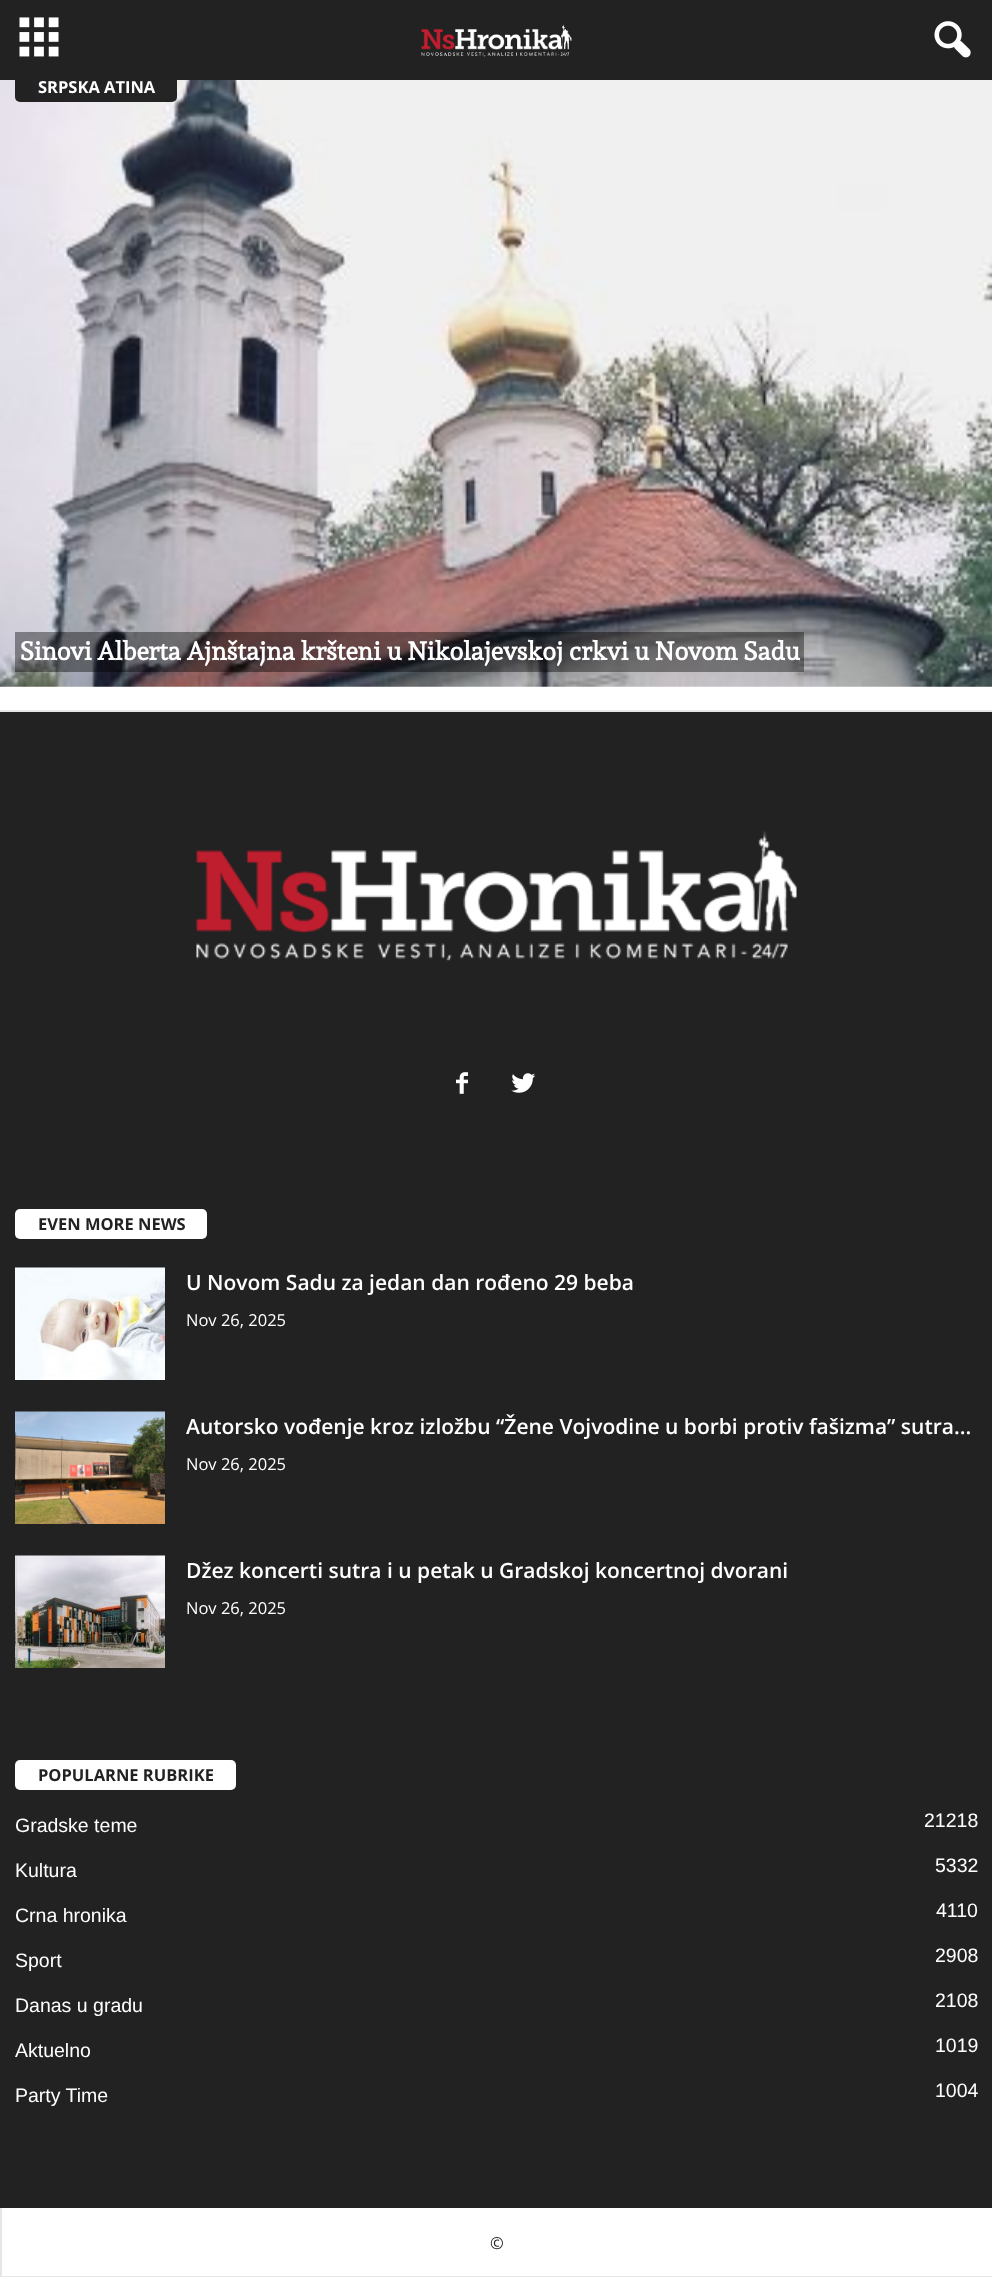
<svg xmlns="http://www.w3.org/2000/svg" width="992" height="2277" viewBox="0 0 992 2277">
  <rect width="100%" height="100%" fill="#ffffff"/>
  <image x="0" y="80" width="992" height="607" href="img4.png"/>
  <rect x="15" y="72" width="162" height="30" rx="5" fill="#000000" fill-opacity="0.85"/>
  <rect x="0" y="0" width="992" height="80" fill="#222222"/>
  <image x="19" y="17" width="40" height="40" href="img1.png"/>
  <image x="421" y="24" width="151" height="33" href="img2.png"/>
  <image x="934" y="21" width="37" height="37" href="img3.png"/>
  <rect x="0" y="710" width="992" height="2" fill="#e6e6e6"/>
  <text x="38" y="93" font-family="Open Sans" font-size="16.5" font-weight="bold" fill="#ffffff">SRPSKA ATINA</text>
  <rect x="15" y="632" width="789" height="40" fill="#000000" fill-opacity="0.4"/>
  <text x="20" y="660" font-family="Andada" font-size="25.5" font-weight="bold" fill="#ffffff">Sinovi Alberta Ajnštajna kršteni u Nikolajevskoj crkvi u Novom Sadu</text>
  <rect x="0" y="712" width="992" height="1496" fill="#222222"/>
  <image x="196" y="831" width="601" height="130" href="img5.png"/>
  <image x="456" y="1072" width="12" height="22" href="img6.png"/>
  <image x="511" y="1073" width="25" height="20" href="img7.png"/>
  <rect x="15" y="1209" width="192" height="30" rx="5" fill="#ffffff"/>
  <text x="38" y="1230" font-family="Open Sans" font-size="16.5" font-weight="bold" fill="#222222">EVEN MORE NEWS</text>
  <image x="15" y="1267" width="150" height="113" href="img8.png"/>
  <text x="186" y="1290" font-family="Open Sans" font-size="21" font-weight="600" fill="#ffffff">U Novom Sadu za jedan dan rođeno 29 beba</text>
  <text x="186" y="1326" font-family="Open Sans" font-size="16.5" fill="#ffffff">Nov 26, 2025</text>
  <image x="15" y="1411" width="150" height="113" href="img9.png"/>
  <text x="186" y="1434" font-family="Open Sans" font-size="21" font-weight="600" fill="#ffffff">Autorsko vođenje kroz izložbu “Žene Vojvodine u borbi protiv fašizma” sutra...</text>
  <text x="186" y="1470" font-family="Open Sans" font-size="16.5" fill="#ffffff">Nov 26, 2025</text>
  <image x="15" y="1555" width="150" height="113" href="img10.png"/>
  <text x="186" y="1578" font-family="Open Sans" font-size="21" font-weight="600" fill="#ffffff">Džez koncerti sutra i u petak u Gradskoj koncertnoj dvorani</text>
  <text x="186" y="1614" font-family="Open Sans" font-size="16.5" fill="#ffffff">Nov 26, 2025</text>
  <rect x="15" y="1760" width="221" height="30" rx="5" fill="#ffffff"/>
  <text x="38" y="1781" font-family="Open Sans" font-size="16.5" font-weight="bold" fill="#222222">POPULARNE RUBRIKE</text>
  <text x="15" y="1832" font-family="Liberation Sans" font-size="19.5" fill="#ffffff">Gradske teme</text>
  <text x="924" y="1827" font-family="Liberation Sans" font-size="19.5" fill="#ffffff">21218</text>
  <text x="15" y="1877" font-family="Liberation Sans" font-size="19.5" fill="#ffffff">Kultura</text>
  <text x="935" y="1872" font-family="Liberation Sans" font-size="19.5" fill="#ffffff">5332</text>
  <text x="15" y="1922" font-family="Liberation Sans" font-size="19.5" fill="#ffffff">Crna hronika</text>
  <text x="936" y="1917" font-family="Liberation Sans" font-size="19.5" fill="#ffffff">4110</text>
  <text x="15" y="1967" font-family="Liberation Sans" font-size="19.5" fill="#ffffff">Sport</text>
  <text x="935" y="1962" font-family="Liberation Sans" font-size="19.5" fill="#ffffff">2908</text>
  <text x="15" y="2012" font-family="Liberation Sans" font-size="19.5" fill="#ffffff">Danas u gradu</text>
  <text x="935" y="2007" font-family="Liberation Sans" font-size="19.5" fill="#ffffff">2108</text>
  <text x="15" y="2057" font-family="Liberation Sans" font-size="19.5" fill="#ffffff">Aktuelno</text>
  <text x="935" y="2052" font-family="Liberation Sans" font-size="19.5" fill="#ffffff">1019</text>
  <text x="15" y="2102" font-family="Liberation Sans" font-size="19.5" fill="#ffffff">Party Time</text>
  <text x="935" y="2097" font-family="Liberation Sans" font-size="19.5" fill="#ffffff">1004</text>
  <rect x="0" y="2208" width="2" height="68" fill="#e6e6e6"/>
  <text x="490" y="2249" font-family="Open Sans" font-size="16.5" fill="#222222">©</text>
  <rect x="0" y="2276" width="992" height="1" fill="#e6e6e6"/>
</svg>
